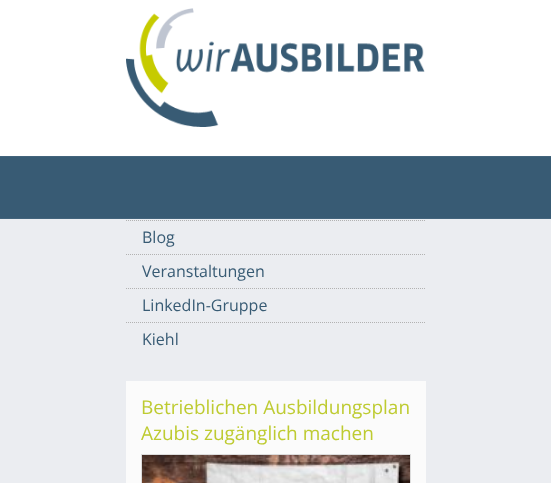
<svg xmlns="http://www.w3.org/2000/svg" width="551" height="483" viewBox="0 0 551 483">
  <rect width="100%" height="100%" fill="#ebedf1"/>
  <image x="0" y="0" width="551" height="219" href="img1.png"/>
  <image x="126" y="8" width="299" height="119" href="img2.png"/>
  <path d="M126 220.5H426" fill="none" stroke="#b2b2b2" stroke-dasharray="1 1"/>
  <text x="142" y="243" font-family="Open Sans" font-size="16" fill="#385b74">Blog</text>
  <path d="M126 254.5H426" fill="none" stroke="#b2b2b2" stroke-dasharray="1 1"/>
  <text x="142" y="277" font-family="Open Sans" font-size="16" fill="#385b74">Veranstaltungen</text>
  <path d="M126 288.5H426" fill="none" stroke="#b2b2b2" stroke-dasharray="1 1"/>
  <text x="142" y="311" font-family="Open Sans" font-size="16" fill="#385b74">LinkedIn-Gruppe</text>
  <path d="M126 322.5H426" fill="none" stroke="#b2b2b2" stroke-dasharray="1 1"/>
  <text x="142" y="345" font-family="Open Sans" font-size="16" fill="#385b74">Kiehl</text>
  <rect x="126" y="381" width="300" height="102" fill="#fbfbfb"/>
  <text x="141" y="414" font-family="Open Sans" font-size="19" fill="#becb31">Betrieblichen Ausbildungsplan</text>
  <text x="141" y="440" font-family="Open Sans" font-size="19" fill="#becb31">Azubis zugänglich machen</text>
  <rect x="141.5" y="454.5" width="269" height="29" fill="none" stroke="#dcdcdc"/>
  <image x="142" y="455" width="268" height="28" href="img3.png"/>
</svg>
